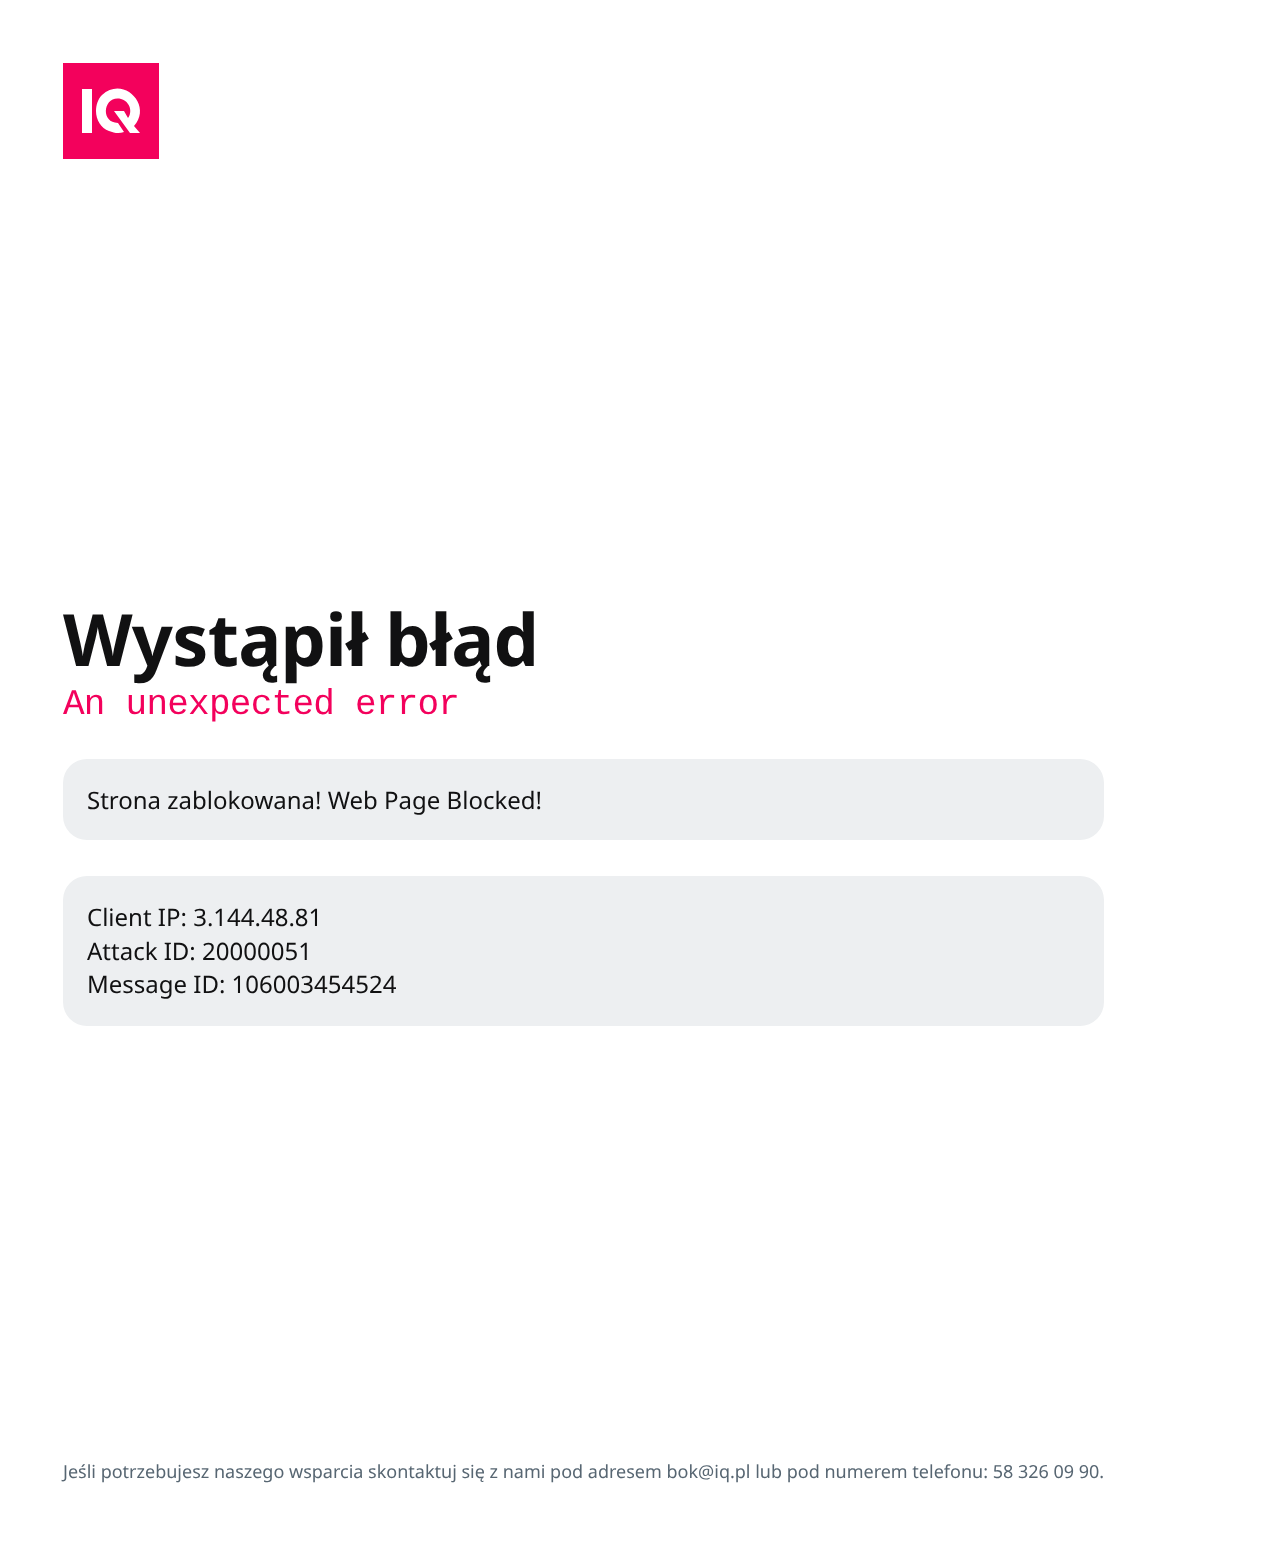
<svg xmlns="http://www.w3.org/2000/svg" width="1284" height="1546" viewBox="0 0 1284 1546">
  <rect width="100%" height="100%" fill="#ffffff"/>
  <path d="M63 63V159H159V63ZM92 133H82V89H92ZM140 133H130L114 111H124L128 118C131 114 131 108 128 104C126 101 124 100 121 99C103 95 100 123 118 123L124 132C119 134 114 133 109 131C101 128 96 120 96 111C96 105 98 99 102 95C123 75 153 105 134 126Z" fill="#f3015c" fill-rule="evenodd"/>
  <text x="63" y="666" font-family="Noto Sans" font-size="72" font-weight="bold" letter-spacing="-0.75" fill="#111112">Wystąpił błąd</text>
  <text x="63" y="714" font-family="Liberation Mono" font-size="36" letter-spacing="-0.75" fill="#f3015c">An unexpected error</text>
  <rect x="63" y="759" width="1041" height="81" rx="24" fill="#edeff1"/>
  <text x="87" y="809" font-family="Noto Sans" font-size="24" fill="#111112">Strona zablokowana! Web Page Blocked!</text>
  <rect x="63" y="876" width="1041" height="150" rx="24" fill="#edeff1"/>
  <text x="87" y="926" font-family="Noto Sans" font-size="24" fill="#111112">Client IP: 3.144.48.81</text>
  <text x="87" y="960" font-family="Noto Sans" font-size="24" fill="#111112">Attack ID: 20000051</text>
  <text x="87" y="993" font-family="Noto Sans" font-size="24" fill="#111112">Message ID: 106003454524</text>
  <text x="63" y="1478" font-family="Noto Sans" font-size="18" fill="#576672">Jeśli potrzebujesz naszego wsparcia skontaktuj się z nami pod adresem bok@iq.pl lub pod numerem telefonu: 58 326 09 90.</text>
</svg>
